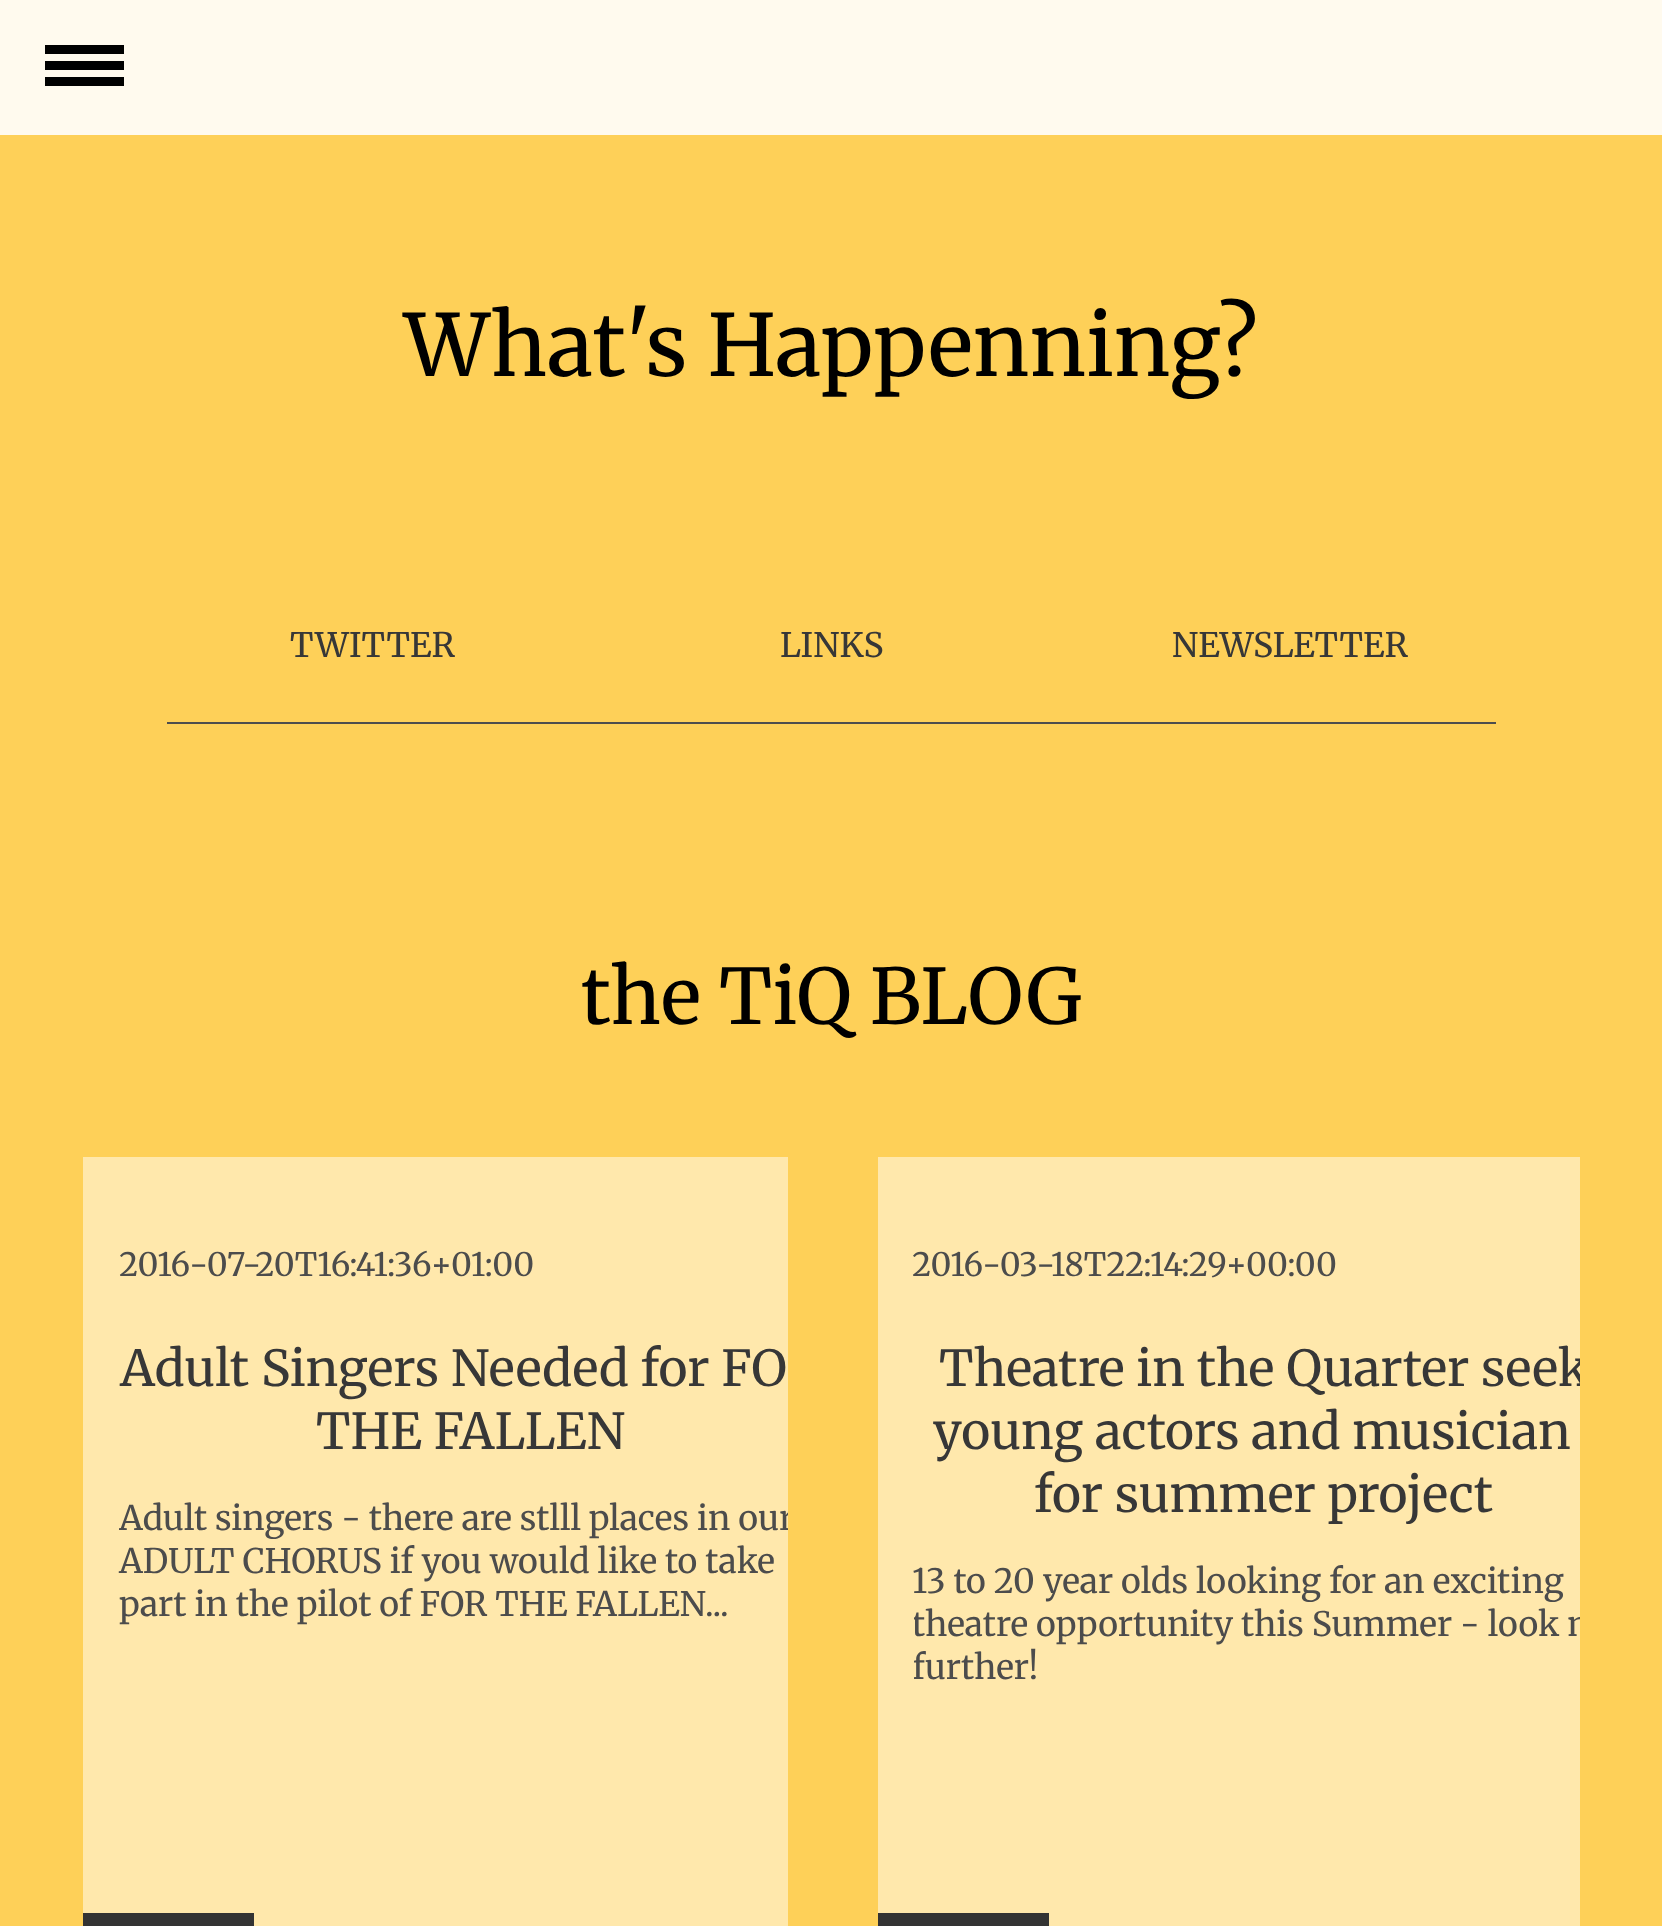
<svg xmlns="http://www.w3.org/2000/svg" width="1662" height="1926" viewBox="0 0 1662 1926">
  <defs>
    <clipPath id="clip1"><rect x="119" y="1496" width="669" height="360"/></clipPath>
    <clipPath id="clip2"><rect x="878" y="1157" width="702" height="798"/></clipPath>
    <clipPath id="clip3"><rect x="914" y="1559" width="666" height="360"/></clipPath>
  </defs>
  <rect width="100%" height="100%" fill="#fed058"/>
  <rect x="0" y="0" width="1662" height="135" fill="#fffaee"/>
  <rect x="45" y="45" width="79" height="9" fill="#000000"/>
  <rect x="45" y="61" width="79" height="9" fill="#000000"/>
  <rect x="45" y="77" width="79" height="9" fill="#000000"/>
  <text x="404" y="376" font-family="Merriweather" font-size="85.5" font-weight="300" fill="#000000">What's Happenning?</text>
  <text x="290" y="657" font-family="Merriweather" font-size="33.75" font-weight="300" fill="#373737">TWITTER</text>
  <text x="780" y="657" font-family="Merriweather" font-size="33.75" font-weight="300" fill="#373737">LINKS</text>
  <text x="1172" y="657" font-family="Merriweather" font-size="33.75" font-weight="300" fill="#373737">NEWSLETTER</text>
  <rect x="167" y="722" width="1329" height="2" fill="#4d4d4d"/>
  <text x="581" y="1024" font-family="Merriweather" font-size="76.5" font-weight="300" fill="#000000">the TiQ BLOG</text>
  <rect x="83" y="1157" width="705" height="769" fill="#ffe8ac"/>
  <text x="119" y="1276" font-family="Merriweather" font-size="32.4" font-weight="300" fill="#4c4c4c">2016-07-20T16:41:36+01:00</text>
  <text x="120" y="1386" font-family="Merriweather" font-size="49.5" font-weight="300" fill="#373737">Adult Singers Needed for FO</text>
  <text x="316" y="1449" font-family="Merriweather" font-size="49.5" font-weight="300" fill="#373737">THE FALLEN</text>
  <g clip-path="url(#clip1)">
    <text x="119" y="1530" font-family="Merriweather" font-size="33.75" font-weight="300" fill="#4c4c4c">Adult singers - there are stlll places in our</text>
  </g>
  <text x="119" y="1573" font-family="Merriweather" font-size="33.75" font-weight="300" fill="#4c4c4c">ADULT CHORUS if you would like to take</text>
  <text x="119" y="1616" font-family="Merriweather" font-size="33.75" font-weight="300" fill="#4c4c4c">part in the pilot of FOR THE FALLEN...</text>
  <rect x="83" y="1913" width="171" height="13" fill="#333333"/>
  <rect x="878" y="1157" width="702" height="769" fill="#ffe8ac"/>
  <text x="912" y="1276" font-family="Merriweather" font-size="32.4" font-weight="300" fill="#4c4c4c">2016-03-18T22:14:29+00:00</text>
  <g clip-path="url(#clip2)">
    <text x="939" y="1386" font-family="Merriweather" font-size="49.5" font-weight="300" fill="#373737">Theatre in the Quarter seek</text>
  </g>
  <text x="933" y="1449" font-family="Merriweather" font-size="49.5" font-weight="300" fill="#373737">young actors and musician</text>
  <text x="1034" y="1512" font-family="Merriweather" font-size="49.5" font-weight="300" fill="#373737">for summer project</text>
  <text x="912" y="1593" font-family="Merriweather" font-size="33.75" font-weight="300" fill="#4c4c4c">13 to 20 year olds looking for an exciting</text>
  <g clip-path="url(#clip3)">
    <text x="912" y="1636" font-family="Merriweather" font-size="33.75" font-weight="300" fill="#4c4c4c">theatre opportunity this Summer - look n</text>
    <text x="912" y="1679" font-family="Merriweather" font-size="33.75" font-weight="300" fill="#4c4c4c">further!</text>
  </g>
  <rect x="878" y="1913" width="171" height="13" fill="#333333"/>
</svg>
